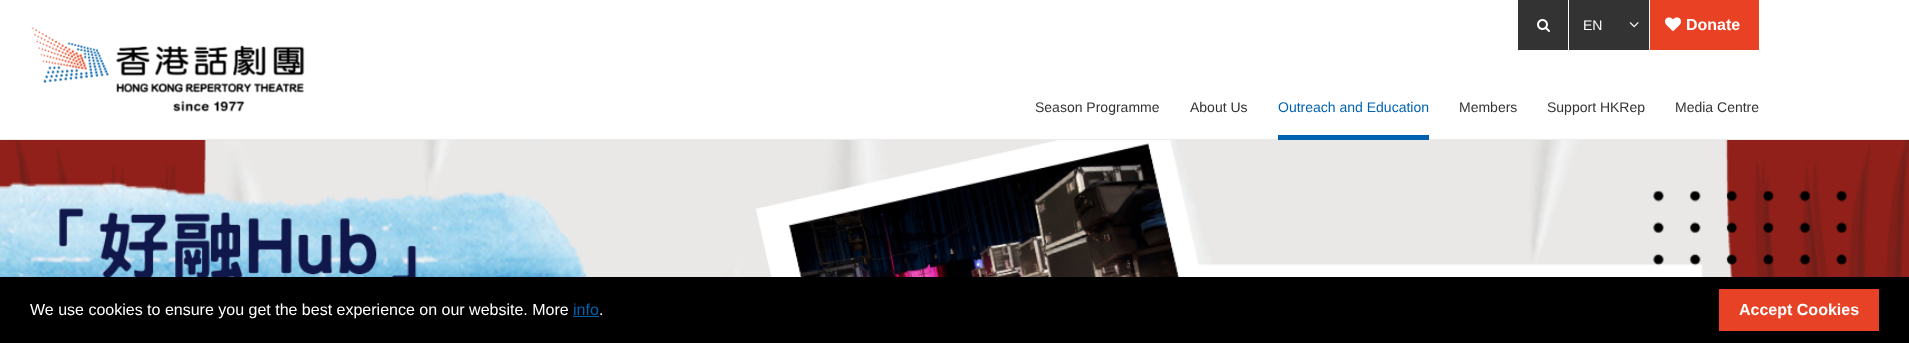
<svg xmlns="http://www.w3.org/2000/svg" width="1909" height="343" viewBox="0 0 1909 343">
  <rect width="100%" height="100%" fill="#ffffff"/>
  <rect x="0" y="139" width="1909" height="1" fill="#ececec"/>
  <rect x="1518" y="0" width="50" height="50" fill="#333333"/>
  <image x="1537" y="19" width="13" height="13" href="img1.png"/>
  <rect x="1569" y="0" width="80" height="50" fill="#333333"/>
  <text x="1583" y="30" font-family="Liberation Sans" font-size="14" fill="#ffffff">EN</text>
  <image x="1629" y="22" width="10" height="6" href="img2.png"/>
  <rect x="1650" y="0" width="109" height="50" fill="#e84124"/>
  <image x="1665" y="17" width="16" height="15" href="img3.png"/>
  <text x="1686" y="30" font-family="Liberation Sans" font-size="16" font-weight="bold" fill="#ffffff">Donate</text>
  <image x="31" y="27" width="274" height="85" href="img4.png"/>
  <text x="1035" y="112" font-family="Liberation Sans" font-size="14" fill="#333333">Season Programme</text>
  <text x="1190" y="112" font-family="Liberation Sans" font-size="14" fill="#333333">About Us</text>
  <rect x="1278" y="135" width="151" height="5" fill="#0062af"/>
  <text x="1278" y="112" font-family="Liberation Sans" font-size="14" fill="#0062af">Outreach and Education</text>
  <text x="1459" y="112" font-family="Liberation Sans" font-size="14" fill="#333333">Members</text>
  <text x="1547" y="112" font-family="Liberation Sans" font-size="14" fill="#333333">Support HKRep</text>
  <text x="1675" y="112" font-family="Liberation Sans" font-size="14" fill="#333333">Media Centre</text>
  <image x="0" y="140" width="1909" height="137" href="img5.png"/>
  <rect x="0" y="277" width="1909" height="66" fill="#000000"/>
  <text x="30" y="315" font-family="Liberation Sans" font-size="16" fill="#ffffff">We use cookies to ensure you get the best experience on our website. More</text>
  <text x="573" y="315" font-family="Liberation Sans" font-size="16" fill="#0062af">info</text>
  <rect x="573" y="316" width="26" height="1" fill="#0062af"/>
  <text x="599" y="315" font-family="Liberation Sans" font-size="16" fill="#ffffff">.</text>
  <rect x="1719" y="289" width="160" height="42" fill="#e74225"/>
  <text x="1739" y="315" font-family="Liberation Sans" font-size="16" font-weight="bold" fill="#ffffff">Accept Cookies</text>
</svg>
